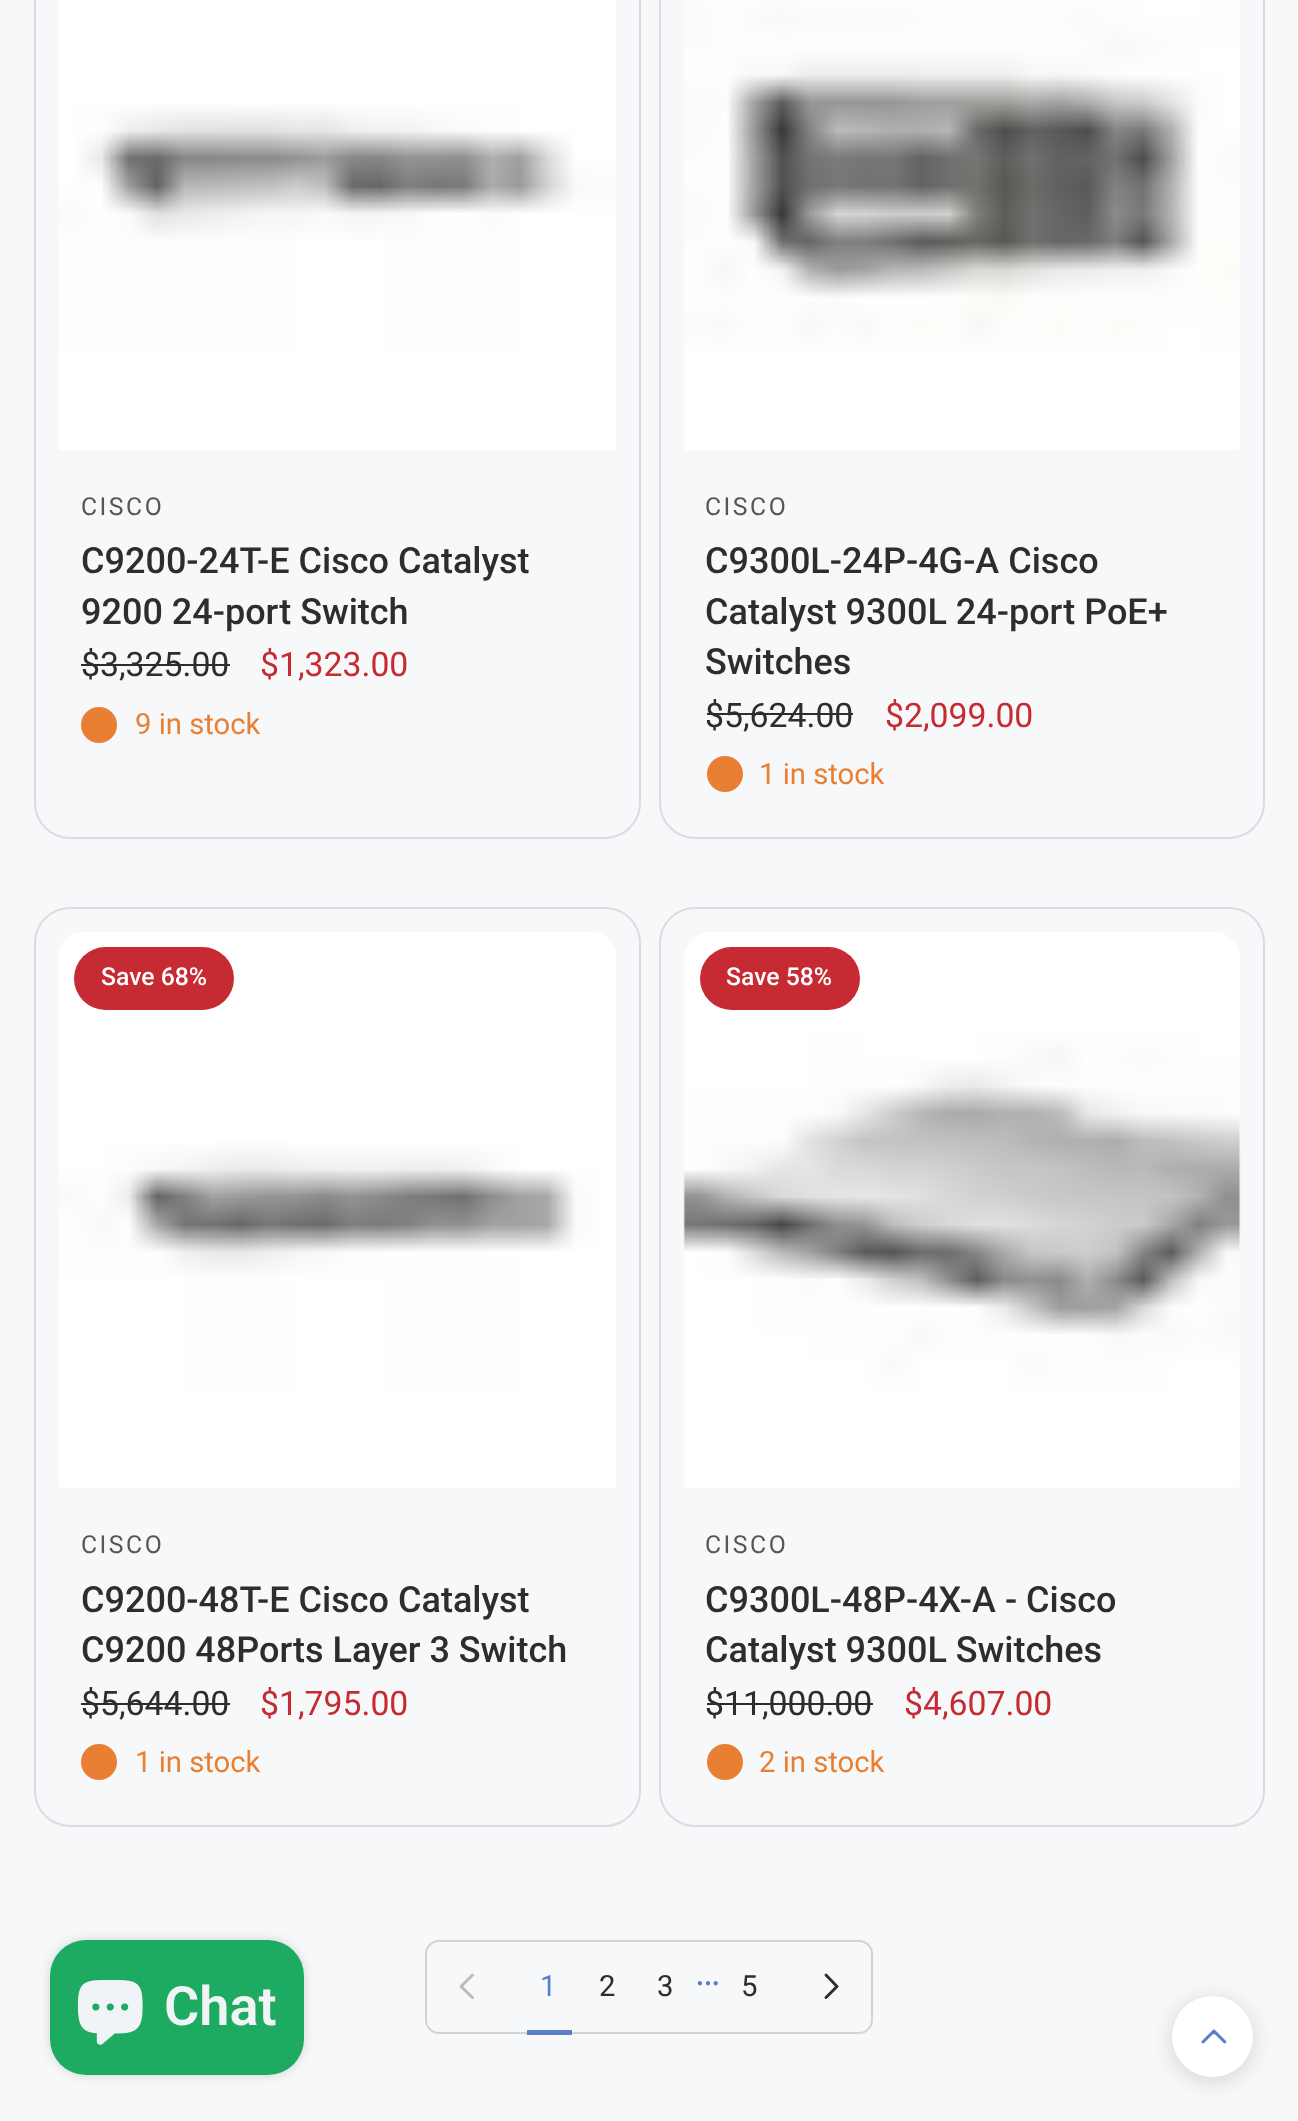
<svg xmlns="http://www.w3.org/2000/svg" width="1298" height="2121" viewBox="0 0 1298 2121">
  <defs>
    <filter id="blur1" x="-50%" y="-200%" width="200%" height="500%"><feGaussianBlur stdDeviation="5.5"/></filter>
    <filter id="blur2" x="-50%" y="-200%" width="200%" height="500%"><feGaussianBlur stdDeviation="11"/></filter>
  </defs>
  <rect width="100%" height="100%" fill="#f7f8f9"/>
  <rect x="35" y="-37" width="605" height="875" rx="35" fill="none" stroke="#dadce0" stroke-width="2"/>
  <image x="59" y="0" width="557" height="450" href="img1.png"/>
  <text x="81" y="515" font-family="Roboto" font-size="24.75" letter-spacing="2.5" fill="#555657">CISCO</text>
  <text x="81" y="573" font-family="Roboto" font-size="36" font-weight="500" fill="#2c2d2e">C9200-24T-E Cisco Catalyst</text>
  <text x="81" y="624" font-family="Roboto" font-size="36" font-weight="500" fill="#2c2d2e">9200 24-port Switch</text>
  <text x="81" y="676" font-family="Roboto" font-size="33.75" fill="#2c2d2e">$3,325.00</text>
  <rect x="81" y="664" width="149" height="2" fill="#2c2d2e"/>
  <text x="260" y="676" font-family="Roboto" font-size="33.75" fill="#c62a32">$1,323.00</text>
  <circle cx="99" cy="725" r="18" fill="#e97f32"/>
  <text x="135" y="734" font-family="Roboto" font-size="29.25" fill="#e97f32">9 in stock</text>
  <rect x="660" y="-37" width="604" height="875" rx="35" fill="none" stroke="#dadce0" stroke-width="2"/>
  <image x="684" y="0" width="556" height="450" href="img2.png"/>
  <text x="705" y="515" font-family="Roboto" font-size="24.75" letter-spacing="2.5" fill="#555657">CISCO</text>
  <text x="705" y="573" font-family="Roboto" font-size="36" font-weight="500" fill="#2c2d2e">C9300L-24P-4G-A Cisco</text>
  <text x="705" y="624" font-family="Roboto" font-size="36" font-weight="500" fill="#2c2d2e">Catalyst 9300L 24-port PoE+</text>
  <text x="705" y="674" font-family="Roboto" font-size="36" font-weight="500" fill="#2c2d2e">Switches</text>
  <text x="705" y="727" font-family="Roboto" font-size="33.75" fill="#2c2d2e">$5,624.00</text>
  <rect x="707" y="713" width="146" height="2" fill="#2c2d2e"/>
  <text x="885" y="727" font-family="Roboto" font-size="33.75" fill="#c62a32">$2,099.00</text>
  <circle cx="725" cy="774" r="18" fill="#e97f32"/>
  <text x="759" y="784" font-family="Roboto" font-size="29.25" fill="#e97f32">1 in stock</text>
  <rect x="35" y="908" width="605" height="918" rx="35" fill="none" stroke="#dadce0" stroke-width="2"/>
  <image x="59" y="932" width="557" height="556" href="img3.png"/>
  <rect x="74" y="947" width="160" height="63" rx="31.5" fill="#c62a32"/>
  <text x="101" y="985" font-family="Roboto" font-size="24.75" font-weight="500" fill="#ffffff">Save 68%</text>
  <text x="81" y="1553" font-family="Roboto" font-size="24.75" letter-spacing="2.5" fill="#555657">CISCO</text>
  <text x="81" y="1612" font-family="Roboto" font-size="36" font-weight="500" fill="#2c2d2e">C9200-48T-E Cisco Catalyst</text>
  <text x="81" y="1662" font-family="Roboto" font-size="36" font-weight="500" fill="#2c2d2e">C9200 48Ports Layer 3 Switch</text>
  <text x="81" y="1715" font-family="Roboto" font-size="33.75" fill="#2c2d2e">$5,644.00</text>
  <rect x="81" y="1703" width="149" height="2" fill="#2c2d2e"/>
  <text x="260" y="1715" font-family="Roboto" font-size="33.75" fill="#c62a32">$1,795.00</text>
  <circle cx="99" cy="1762" r="18" fill="#e97f32"/>
  <text x="135" y="1772" font-family="Roboto" font-size="29.25" fill="#e97f32">1 in stock</text>
  <rect x="660" y="908" width="604" height="918" rx="35" fill="none" stroke="#dadce0" stroke-width="2"/>
  <image x="683" y="932" width="558" height="556" href="img4.png"/>
  <rect x="700" y="947" width="160" height="63" rx="31.5" fill="#c62a32"/>
  <text x="726" y="985" font-family="Roboto" font-size="24.75" font-weight="500" fill="#ffffff">Save 58%</text>
  <text x="705" y="1553" font-family="Roboto" font-size="24.75" letter-spacing="2.5" fill="#555657">CISCO</text>
  <text x="705" y="1612" font-family="Roboto" font-size="36" font-weight="500" fill="#2c2d2e">C9300L-48P-4X-A - Cisco</text>
  <text x="705" y="1662" font-family="Roboto" font-size="36" font-weight="500" fill="#2c2d2e">Catalyst 9300L Switches</text>
  <text x="705" y="1715" font-family="Roboto" font-size="33.75" fill="#2c2d2e">$11,000.00</text>
  <rect x="707" y="1703" width="166" height="2" fill="#2c2d2e"/>
  <text x="904" y="1715" font-family="Roboto" font-size="33.75" fill="#c62a32">$4,607.00</text>
  <circle cx="725" cy="1762" r="18" fill="#e97f32"/>
  <text x="759" y="1772" font-family="Roboto" font-size="29.25" fill="#e97f32">2 in stock</text>
  <rect x="426" y="1941" width="446" height="92" rx="13" fill="none" stroke="#d3d3d3" stroke-width="2"/>
  <path d="M472.5 1975L461 1986.5L472.5 1997.5" fill="none" stroke="#babbbc" stroke-width="2.9" stroke-linecap="round" stroke-linejoin="round"/>
  <text x="540" y="1996" font-family="Roboto" font-size="29.25" fill="#597fca">1</text>
  <rect x="527" y="2030" width="45" height="5" fill="#597fca"/>
  <text x="599" y="1996" font-family="Roboto" font-size="29.25" fill="#2c2d2e">2</text>
  <text x="657" y="1996" font-family="Roboto" font-size="29.25" fill="#2c2d2e">3</text>
  <text x="695" y="1985" font-family="Roboto" font-size="38" fill="#597fca">…</text>
  <text x="741" y="1996" font-family="Roboto" font-size="29.25" fill="#2c2d2e">5</text>
  <path d="M826 1975L837 1986.5L826 1997.5" fill="none" stroke="#2c2d2e" stroke-width="2.9" stroke-linecap="round" stroke-linejoin="round"/>
  <rect x="50" y="1940" width="254" height="135" rx="36" fill="#000000" fill-opacity="0.15" filter="url(#blur1)"/>
  <rect x="50" y="1940" width="254" height="135" rx="36" fill="#1daa61"/>
  <image x="77" y="1980" width="66" height="65" href="img5.png"/>
  <text x="164" y="2025" font-family="Roboto" font-size="54" font-weight="600" fill="#f1f4f6">Chat</text>
  <rect x="1172" y="2000" width="81" height="81" rx="40.5" fill="#000000" fill-opacity="0.15" filter="url(#blur2)"/>
  <circle cx="1212.5" cy="2036.5" r="40.5" fill="#ffffff"/>
  <image x="1201" y="2029" width="26" height="15" href="img6.png"/>
</svg>
